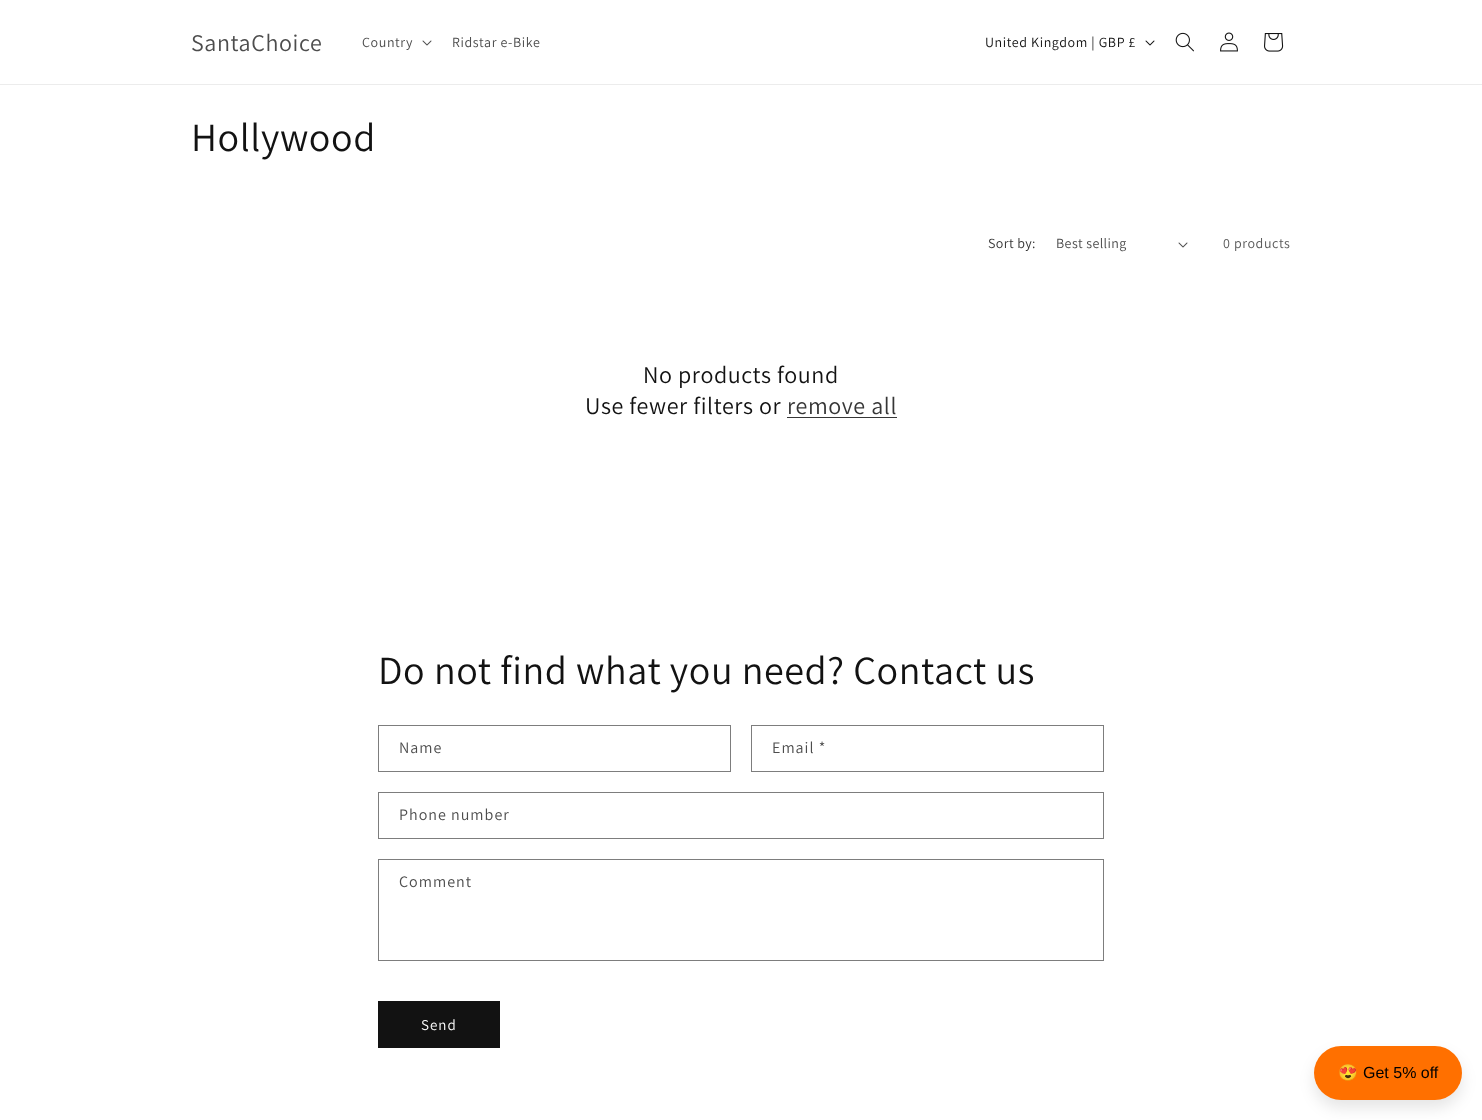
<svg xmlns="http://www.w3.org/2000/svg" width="1482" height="1120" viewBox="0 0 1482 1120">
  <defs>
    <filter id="blur1" x="-50%" y="-200%" width="200%" height="500%"><feGaussianBlur stdDeviation="7.5"/></filter>
  </defs>
  <rect width="100%" height="100%" fill="#ffffff"/>
  <rect x="0" y="84" width="1482" height="1" fill="#ececec"/>
  <text x="191" y="51" font-family="Assistant" font-size="24" letter-spacing="0.6" fill="#4d4d4d">SantaChoice</text>
  <text x="362" y="47" font-family="Assistant" font-size="14" letter-spacing="0.6" fill="#4d4d4d">Country</text>
  <image x="422" y="40" width="10" height="6" href="img1.png"/>
  <text x="452" y="47" font-family="Assistant" font-size="14" letter-spacing="0.6" fill="#4d4d4d">Ridstar e-Bike</text>
  <text x="985" y="47" font-family="Assistant" font-size="14" letter-spacing="0.6" fill="#121212">United Kingdom | GBP £</text>
  <image x="1145" y="40" width="10" height="6" href="img2.png"/>
  <image x="1175" y="32" width="19" height="20" href="img3.png"/>
  <image x="1220" y="32" width="18" height="20" href="img4.png"/>
  <image x="1264" y="33" width="20" height="19" href="img5.png"/>
  <text x="191" y="151" font-family="Assistant" font-size="40" letter-spacing="0.6" fill="#121212">Hollywood</text>
  <text x="988" y="248" font-family="Assistant" font-size="14" letter-spacing="0.4" fill="#363636">Sort by:</text>
  <text x="1056" y="248" font-family="Assistant" font-size="14" letter-spacing="0.4" fill="#4d4d4d">Best selling</text>
  <image x="1178" y="242" width="10" height="6" href="img1.png"/>
  <text x="1223" y="248" font-family="Assistant" font-size="14" letter-spacing="0.6" fill="#595959">0 products</text>
  <text x="643" y="383" font-family="Assistant" font-size="24" letter-spacing="0.6" fill="#121212">No products found</text>
  <text x="585" y="414" font-family="Assistant" font-size="24" letter-spacing="0.6" fill="#121212">Use fewer filters or</text>
  <text x="787" y="414" font-family="Assistant" font-size="24" letter-spacing="0.6" fill="#363636">remove all</text>
  <rect x="787" y="417" width="110" height="1" fill="#363636"/>
  <text x="378" y="684" font-family="Assistant" font-size="40" letter-spacing="0.6" fill="#121212">Do not find what you need? Contact us</text>
  <rect x="378.5" y="725.5" width="352" height="46" fill="none" stroke="#7d7d7d"/>
  <text x="399" y="753" font-family="Assistant" font-size="16" letter-spacing="1" fill="#4d4d4d">Name</text>
  <rect x="751.5" y="725.5" width="352" height="46" fill="none" stroke="#7d7d7d"/>
  <text x="772" y="753" font-family="Assistant" font-size="16" letter-spacing="1" fill="#4d4d4d">Email *</text>
  <rect x="378.5" y="792.5" width="725" height="46" fill="none" stroke="#7d7d7d"/>
  <text x="399" y="820" font-family="Assistant" font-size="16" letter-spacing="1" fill="#4d4d4d">Phone number</text>
  <rect x="378.5" y="859.5" width="725" height="101" fill="none" stroke="#7d7d7d"/>
  <text x="399" y="887" font-family="Assistant" font-size="16" letter-spacing="1" fill="#4d4d4d">Comment</text>
  <rect x="378" y="1001" width="122" height="47" fill="#121212"/>
  <text x="421" y="1030" font-family="Assistant" font-size="15" letter-spacing="1" fill="#ffffff">Send</text>
  <rect x="1314" y="1054" width="148" height="54" rx="27" fill="#000000" fill-opacity="0.1" filter="url(#blur1)"/>
  <rect x="1314" y="1046" width="148" height="54" rx="27" fill="#ff7000"/>
  <text x="1338" y="1078" font-family="Noto Color Emoji" font-size="16" fill="#000000">😍</text>
  <text x="1363" y="1078" font-family="Liberation Sans" font-size="16" fill="#000000">Get 5% off</text>
</svg>
